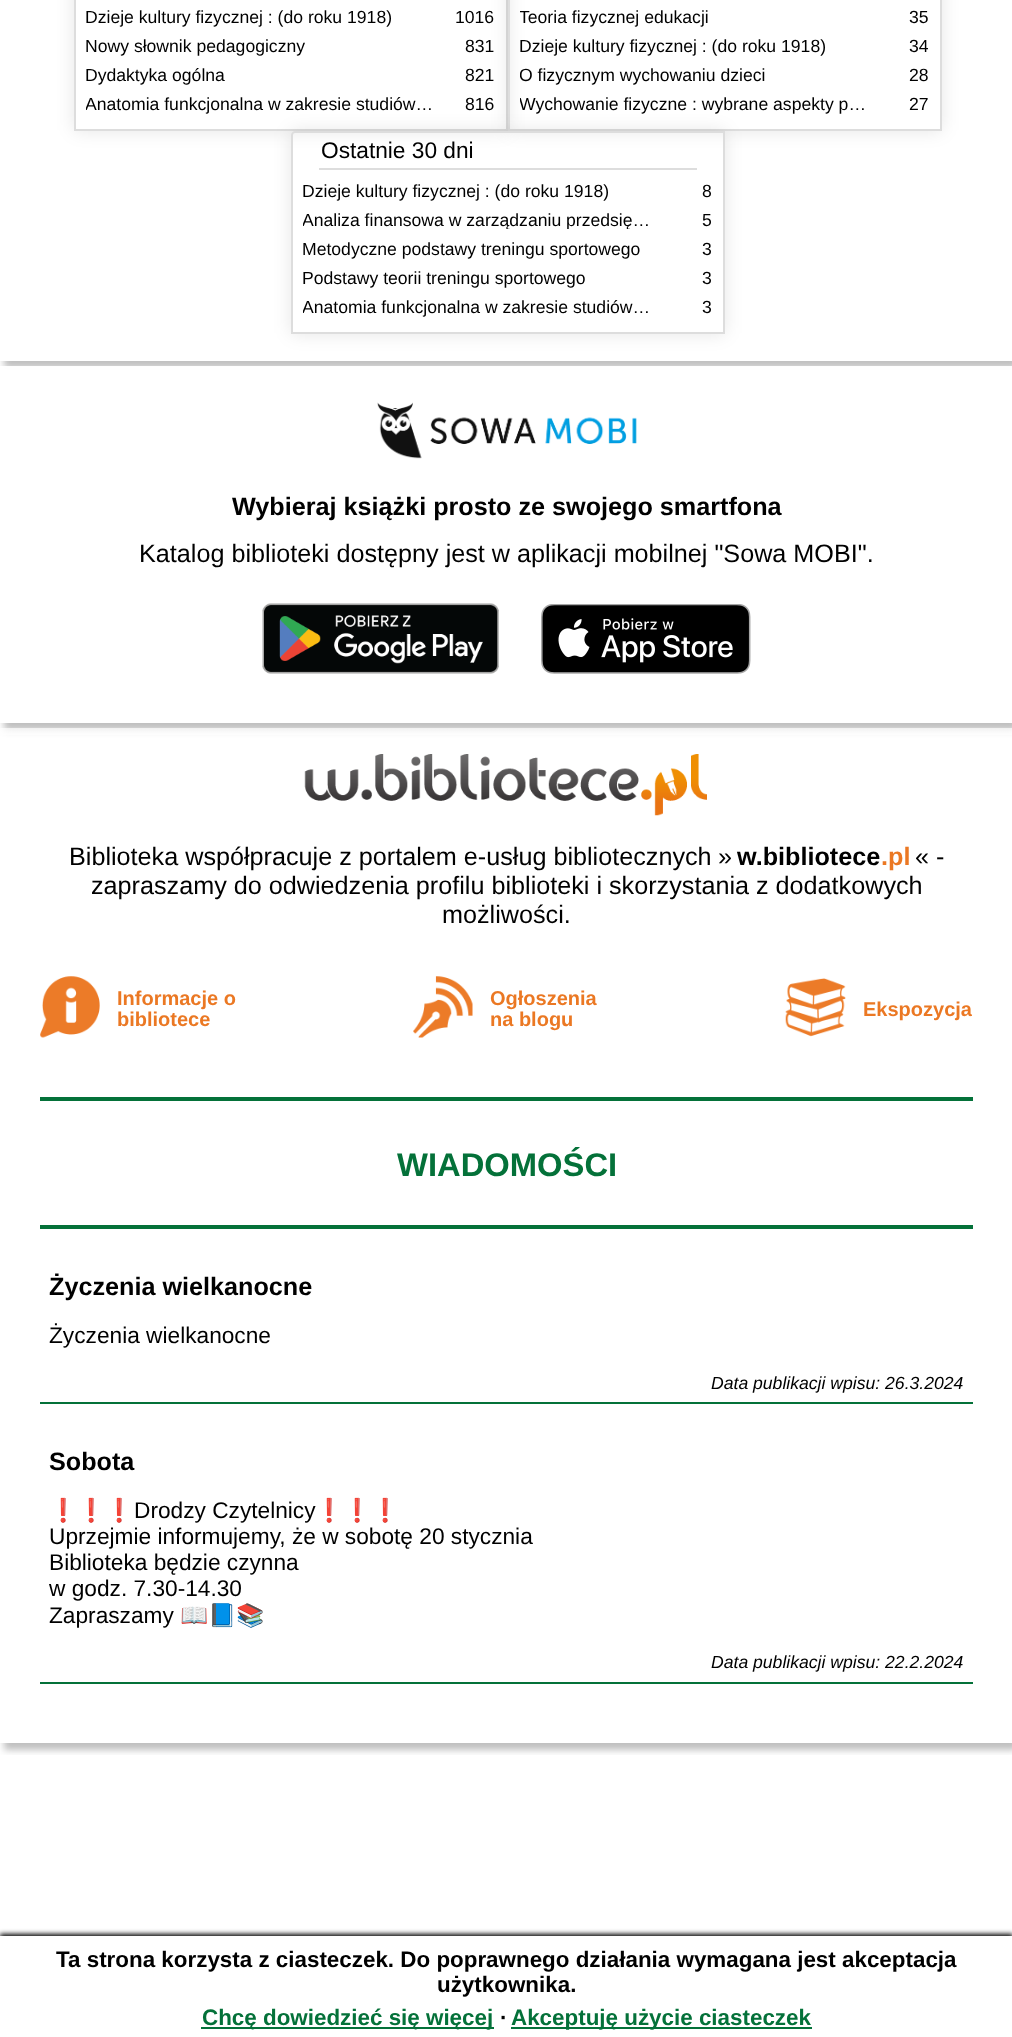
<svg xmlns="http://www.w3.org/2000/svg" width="1012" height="2037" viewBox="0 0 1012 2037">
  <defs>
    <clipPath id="clip1"><path d="M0 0H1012V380H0ZM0-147H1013V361H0Z" clip-rule="evenodd"/></clipPath>
    <filter id="blur1" x="-50%" y="-200%" width="200%" height="500%"><feGaussianBlur stdDeviation="3.5"/></filter>
    <clipPath id="clip2"><path d="M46 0H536V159H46ZM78-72H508V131H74V-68C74-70 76-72 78-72Z" clip-rule="evenodd"/></clipPath>
    <filter id="blur2" x="-50%" y="-200%" width="200%" height="500%"><feGaussianBlur stdDeviation="9"/></filter>
    <clipPath id="clip3"><path d="M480 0H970V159H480ZM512-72H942V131H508V-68C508-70 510-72 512-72Z" clip-rule="evenodd"/></clipPath>
    <clipPath id="clip4"><path d="M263 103H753V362H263ZM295 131H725V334H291V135C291 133 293 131 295 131Z" clip-rule="evenodd"/></clipPath>
    <clipPath id="clip5"><rect x="86" y="95" width="350" height="19"/></clipPath>
    <clipPath id="clip6"><rect x="520" y="7" width="350" height="21"/></clipPath>
    <clipPath id="clip7"><rect x="520" y="65" width="350" height="21"/></clipPath>
    <clipPath id="clip8"><rect x="520" y="95" width="350" height="19"/></clipPath>
    <clipPath id="clip9"><rect x="303" y="210" width="350" height="19"/></clipPath>
    <clipPath id="clip10"><rect x="303" y="298" width="350" height="19"/></clipPath>
    <clipPath id="clip11"><path d="M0 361H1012V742H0ZM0 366H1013V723H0Z" clip-rule="evenodd"/></clipPath>
    <clipPath id="clip12"><rect x="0" y="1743" width="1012" height="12"/></clipPath>
    <linearGradient id="g1" gradientUnits="userSpaceOnUse" x1="507" y1="1073" x2="507" y2="728"><stop offset="0" stop-color="#ffffff"/><stop offset="0.5" stop-color="#ffffff"/><stop offset="1" stop-color="#ffffff" stop-opacity="0.7"/></linearGradient>
    <filter id="blur3" x="-50%" y="-200%" width="200%" height="500%"><feGaussianBlur stdDeviation="2.5"/></filter>
  </defs>
  <rect width="100%" height="100%" fill="#ffffff"/>
  <g clip-path="url(#clip1)">
    <rect x="4" y="-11" width="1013" height="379" fill="#000000" fill-opacity="0.25" filter="url(#blur1)"/>
  </g>
  <rect x="0" y="360" width="1012" height="1" fill="#ffffff" fill-opacity="0.95"/>
  <g clip-path="url(#clip2)">
    <rect x="74" y="-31" width="434" height="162" rx="4" fill="#000000" fill-opacity="0.1" filter="url(#blur2)"/>
  </g>
  <rect x="75" y="-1" width="432" height="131" fill="none" stroke="#dddddd" stroke-width="2"/>
  <text x="85" y="23" font-family="Liberation Sans" font-size="17.6" fill="#000000">Dzieje kultury fizycznej : (do roku 1918)</text>
  <g clip-path="url(#clip3)">
    <rect x="508" y="-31" width="434" height="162" rx="4" fill="#000000" fill-opacity="0.1" filter="url(#blur2)"/>
  </g>
  <text x="455" y="23" font-family="Liberation Sans" font-size="17.6" fill="#000000">1016</text>
  <text x="85" y="52" font-family="Liberation Sans" font-size="17.6" fill="#000000">Nowy słownik pedagogiczny</text>
  <text x="465" y="52" font-family="Liberation Sans" font-size="17.6" fill="#000000">831</text>
  <text x="85" y="81" font-family="Liberation Sans" font-size="17.6" fill="#000000">Dydaktyka ogólna</text>
  <text x="465" y="81" font-family="Liberation Sans" font-size="17.6" fill="#000000">821</text>
  <rect x="509" y="-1" width="432" height="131" fill="none" stroke="#dddddd" stroke-width="2"/>
  <g clip-path="url(#clip4)">
    <rect x="291" y="131" width="434" height="203" rx="4" fill="#000000" fill-opacity="0.1" filter="url(#blur2)"/>
  </g>
  <g clip-path="url(#clip5)">
    <text x="85" y="110" font-family="Liberation Sans" font-size="17.6" fill="#000000">Anatomia funkcjonalna w zakresie studiów…</text>
  </g>
  <text x="465" y="110" font-family="Liberation Sans" font-size="17.6" fill="#000000">816</text>
  <g clip-path="url(#clip6)">
    <text x="519" y="23" font-family="Liberation Sans" font-size="17.6" fill="#000000">Teoria fizycznej edukacji</text>
  </g>
  <text x="909" y="23" font-family="Liberation Sans" font-size="17.6" fill="#000000">35</text>
  <text x="519" y="52" font-family="Liberation Sans" font-size="17.6" fill="#000000">Dzieje kultury fizycznej : (do roku 1918)</text>
  <text x="909" y="52" font-family="Liberation Sans" font-size="17.6" fill="#000000">34</text>
  <g clip-path="url(#clip7)">
    <text x="519" y="81" font-family="Liberation Sans" font-size="17.6" fill="#000000">O fizycznym wychowaniu dzieci</text>
  </g>
  <text x="909" y="81" font-family="Liberation Sans" font-size="17.6" fill="#000000">28</text>
  <g clip-path="url(#clip8)">
    <text x="519" y="110" font-family="Liberation Sans" font-size="17.6" fill="#000000">Wychowanie fizyczne : wybrane aspekty p…</text>
  </g>
  <text x="909" y="110" font-family="Liberation Sans" font-size="17.6" fill="#000000">27</text>
  <path d="M295 132H724V333H292V135C292 133.5 293.5 132 295 132Z" fill="none" stroke="#dddddd" stroke-width="2"/>
  <rect x="319" y="168" width="378" height="2" fill="#dddddd"/>
  <text x="321" y="158" font-family="Liberation Sans" font-size="22.7" fill="#000000">Ostatnie 30 dni</text>
  <text x="302" y="197" font-family="Liberation Sans" font-size="17.6" fill="#000000">Dzieje kultury fizycznej : (do roku 1918)</text>
  <text x="702" y="197" font-family="Liberation Sans" font-size="17.6" fill="#000000">8</text>
  <g clip-path="url(#clip9)">
    <text x="302" y="226" font-family="Liberation Sans" font-size="17.6" fill="#000000">Analiza finansowa w zarządzaniu przedsię…</text>
  </g>
  <text x="702" y="226" font-family="Liberation Sans" font-size="17.6" fill="#000000">5</text>
  <text x="302" y="255" font-family="Liberation Sans" font-size="17.6" fill="#000000">Metodyczne podstawy treningu sportowego</text>
  <text x="702" y="255" font-family="Liberation Sans" font-size="17.6" fill="#000000">3</text>
  <text x="302" y="284" font-family="Liberation Sans" font-size="17.6" fill="#000000">Podstawy teorii treningu sportowego</text>
  <text x="702" y="284" font-family="Liberation Sans" font-size="17.6" fill="#000000">3</text>
  <g clip-path="url(#clip10)">
    <text x="302" y="313" font-family="Liberation Sans" font-size="17.6" fill="#000000">Anatomia funkcjonalna w zakresie studiów…</text>
  </g>
  <text x="702" y="313" font-family="Liberation Sans" font-size="17.6" fill="#000000">3</text>
  <g clip-path="url(#clip11)">
    <rect x="4" y="373" width="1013" height="357" fill="#000000" fill-opacity="0.25" filter="url(#blur1)"/>
  </g>
  <rect x="0" y="366" width="1012" height="357" fill="#ffffff" fill-opacity="0.95"/>
  <image x="377" y="402" width="260" height="57" href="img1.png"/>
  <text x="232" y="515" font-family="Liberation Sans" font-size="25.2" font-weight="bold" fill="#000000">Wybieraj książki prosto ze swojego smartfona</text>
  <text x="139" y="562" font-family="Liberation Sans" font-size="25.2" fill="#000000">Katalog biblioteki dostępny jest w aplikacji mobilnej "Sowa MOBI".</text>
  <image x="262" y="603" width="237" height="71" href="img2.png"/>
  <image x="541" y="604" width="210" height="70" href="img3.png"/>
  <g clip-path="url(#clip12)">
    <rect x="4" y="735" width="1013" height="1015" fill="#000000" fill-opacity="0.25" filter="url(#blur1)"/>
  </g>
  <rect x="0" y="728" width="1012" height="7" fill="url(#g1)"/>
  <image x="304" y="754" width="403" height="62" href="img4.png"/>
  <text x="69" y="865" font-family="Liberation Sans" font-size="25.2" fill="#000000">Biblioteka współpracuje z portalem e-usług bibliotecznych</text>
  <text x="718" y="865" font-family="Liberation Sans" font-size="25.2" fill="#000000">»</text>
  <text x="737" y="865" font-family="Liberation Sans" font-size="25.2" font-weight="bold" fill="#000000">w.bibliotece</text>
  <text x="881" y="865" font-family="Liberation Sans" font-size="25.2" font-weight="bold" fill="#eb7823">.pl</text>
  <text x="915" y="865" font-family="Liberation Sans" font-size="25.2" fill="#000000">« -</text>
  <text x="91" y="894" font-family="Liberation Sans" font-size="25.2" fill="#000000">zapraszamy do odwiedzenia profilu biblioteki i skorzystania z dodatkowych</text>
  <text x="442" y="923" font-family="Liberation Sans" font-size="25.2" fill="#000000">możliwości.</text>
  <image x="40" y="976" width="60" height="62" href="img5.png"/>
  <text x="117" y="1005" font-family="Liberation Sans" font-size="20" font-weight="bold" fill="#eb7823">Informacje o</text>
  <text x="117" y="1026" font-family="Liberation Sans" font-size="20" font-weight="bold" fill="#eb7823">bibliotece</text>
  <image x="413" y="976" width="60" height="62" href="img6.png"/>
  <text x="490" y="1005" font-family="Liberation Sans" font-size="20" font-weight="bold" fill="#eb7823">Ogłoszenia</text>
  <text x="490" y="1026" font-family="Liberation Sans" font-size="20" font-weight="bold" fill="#eb7823">na blogu</text>
  <image x="785" y="978" width="61" height="59" href="img7.png"/>
  <text x="863" y="1016" font-family="Liberation Sans" font-size="20" font-weight="bold" fill="#eb7823">Ekspozycja</text>
  <rect x="40" y="1097" width="933" height="4" fill="#047139"/>
  <rect x="40" y="1225" width="933" height="4" fill="#047139"/>
  <text x="397" y="1176" font-family="Liberation Sans" font-size="32.75" font-weight="bold" fill="#047139">WIADOMOŚCI</text>
  <rect x="40" y="1402" width="933" height="2" fill="#047139"/>
  <text x="49" y="1295" font-family="Liberation Sans" font-size="25.2" font-weight="bold" fill="#000000">Życzenia wielkanocne</text>
  <text x="49" y="1343" font-family="Liberation Sans" font-size="22.7" fill="#000000">Życzenia wielkanocne</text>
  <text x="711" y="1389" font-family="Liberation Sans" font-size="17.6" font-style="italic" fill="#000000">Data publikacji wpisu: 26.3.2024</text>
  <rect x="40" y="1682" width="933" height="2" fill="#047139"/>
  <text x="49" y="1470" font-family="Liberation Sans" font-size="25.2" font-weight="bold" fill="#000000">Sobota</text>
  <text x="49" y="1518" font-family="Noto Color Emoji" font-size="22.7" fill="#000000">❗️❗️❗️</text>
  <text x="134" y="1518" font-family="Liberation Sans" font-size="22.7" fill="#000000">Drodzy Czytelnicy</text>
  <text x="315" y="1518" font-family="Noto Color Emoji" font-size="22.7" fill="#000000">❗️❗️❗️</text>
  <text x="49" y="1544" font-family="Liberation Sans" font-size="22.7" fill="#000000">Uprzejmie informujemy, że w sobotę 20 stycznia</text>
  <text x="49" y="1570" font-family="Liberation Sans" font-size="22.7" fill="#000000">Biblioteka będzie czynna</text>
  <text x="49" y="1596" font-family="Liberation Sans" font-size="22.7" fill="#000000">w godz. 7.30-14.30</text>
  <text x="49" y="1623" font-family="Liberation Sans" font-size="22.7" fill="#000000">Zapraszamy</text>
  <text x="180" y="1623" font-family="Noto Color Emoji" font-size="22.7" fill="#000000">📖📘📚</text>
  <text x="711" y="1668" font-family="Liberation Sans" font-size="17.6" font-style="italic" fill="#000000">Data publikacji wpisu: 22.2.2024</text>
  <rect x="0" y="1934" width="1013" height="101" fill="#000000" filter="url(#blur3)"/>
  <rect x="0" y="1936" width="1012" height="101" fill="#ffffff"/>
  <text x="56" y="1967" font-family="Liberation Sans" font-size="22.4" font-weight="bold" fill="#000000">Ta strona korzysta z ciasteczek. Do poprawnego działania wymagana jest akceptacja</text>
  <text x="437" y="1992" font-family="Liberation Sans" font-size="22.4" font-weight="bold" fill="#000000">użytkownika.</text>
  <rect x="201" y="2027" width="293" height="2" fill="#047139"/>
  <text x="202" y="2025" font-family="Liberation Sans" font-size="22.4" font-weight="bold" fill="#047139">Chcę dowiedzieć się więcej</text>
  <text x="500" y="2025" font-family="Liberation Sans" font-size="22.4" font-weight="bold" fill="#000000">∙</text>
  <rect x="511" y="2027" width="301" height="2" fill="#047139"/>
  <text x="511" y="2025" font-family="Liberation Sans" font-size="22.4" font-weight="bold" fill="#047139">Akceptuję użycie ciasteczek</text>
</svg>
